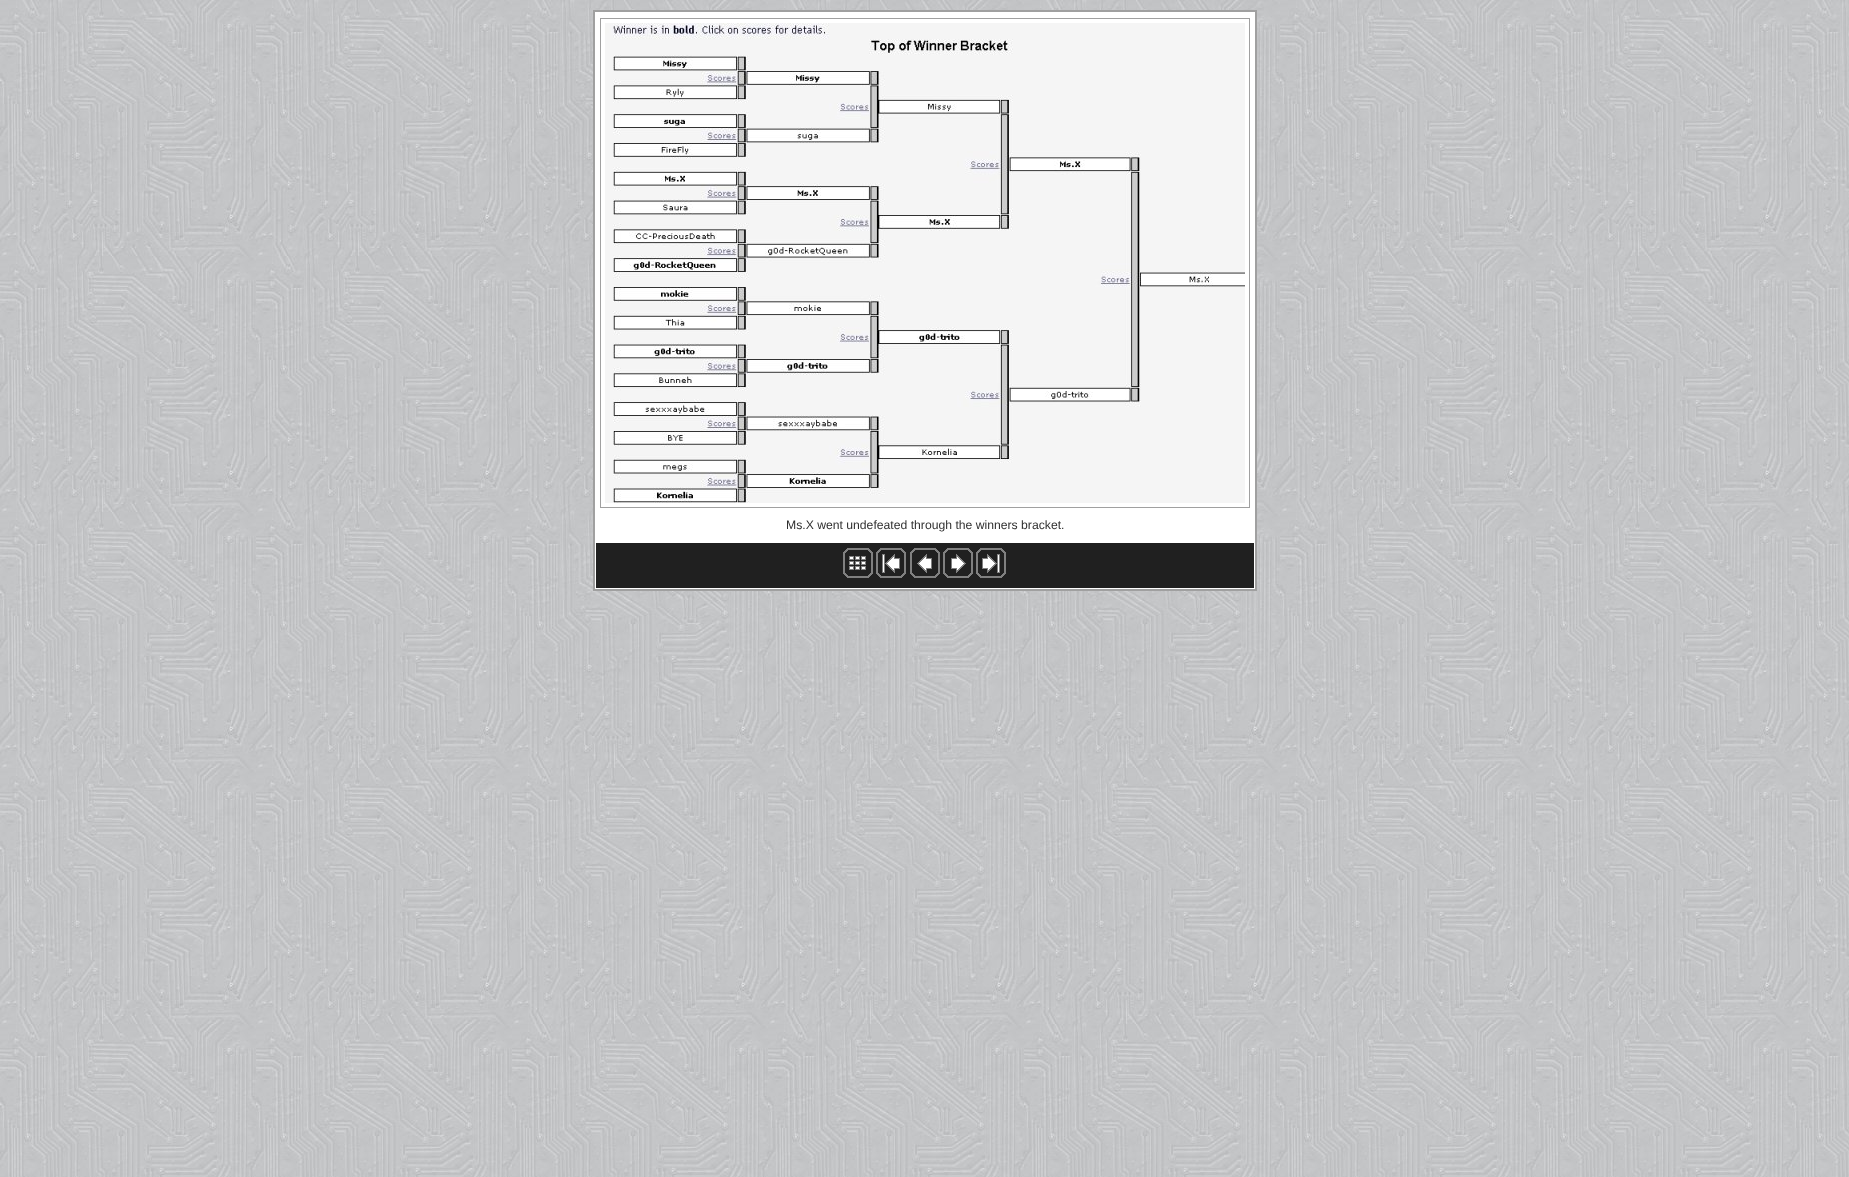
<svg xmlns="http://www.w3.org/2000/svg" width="1849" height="1177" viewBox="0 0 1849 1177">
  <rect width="100%" height="100%" fill="#ffffff"/>
  <image x="0" y="0" width="1849" height="1177" href="img1.png"/>
  <rect x="594" y="11" width="662" height="579" fill="#ffffff" stroke="#a0a0a0" stroke-width="2"/>
  <rect x="600.5" y="18.5" width="649" height="489" fill="none" stroke="#a0a0a0"/>
  <image x="605" y="23" width="640" height="480" href="img2.png"/>
  <text x="786" y="529" font-family="Liberation Sans" font-size="12.2" fill="#303030">Ms.X went undefeated through the winners bracket.</text>
  <rect x="596" y="543" width="658" height="45" fill="#202020"/>
  <image x="843" y="548" width="30" height="30" href="img3.png"/>
  <image x="876" y="548" width="30" height="30" href="img4.png"/>
  <image x="910" y="548" width="30" height="30" href="img5.png"/>
  <image x="943" y="548" width="30" height="30" href="img6.png"/>
  <image x="976" y="548" width="30" height="30" href="img7.png"/>
</svg>
